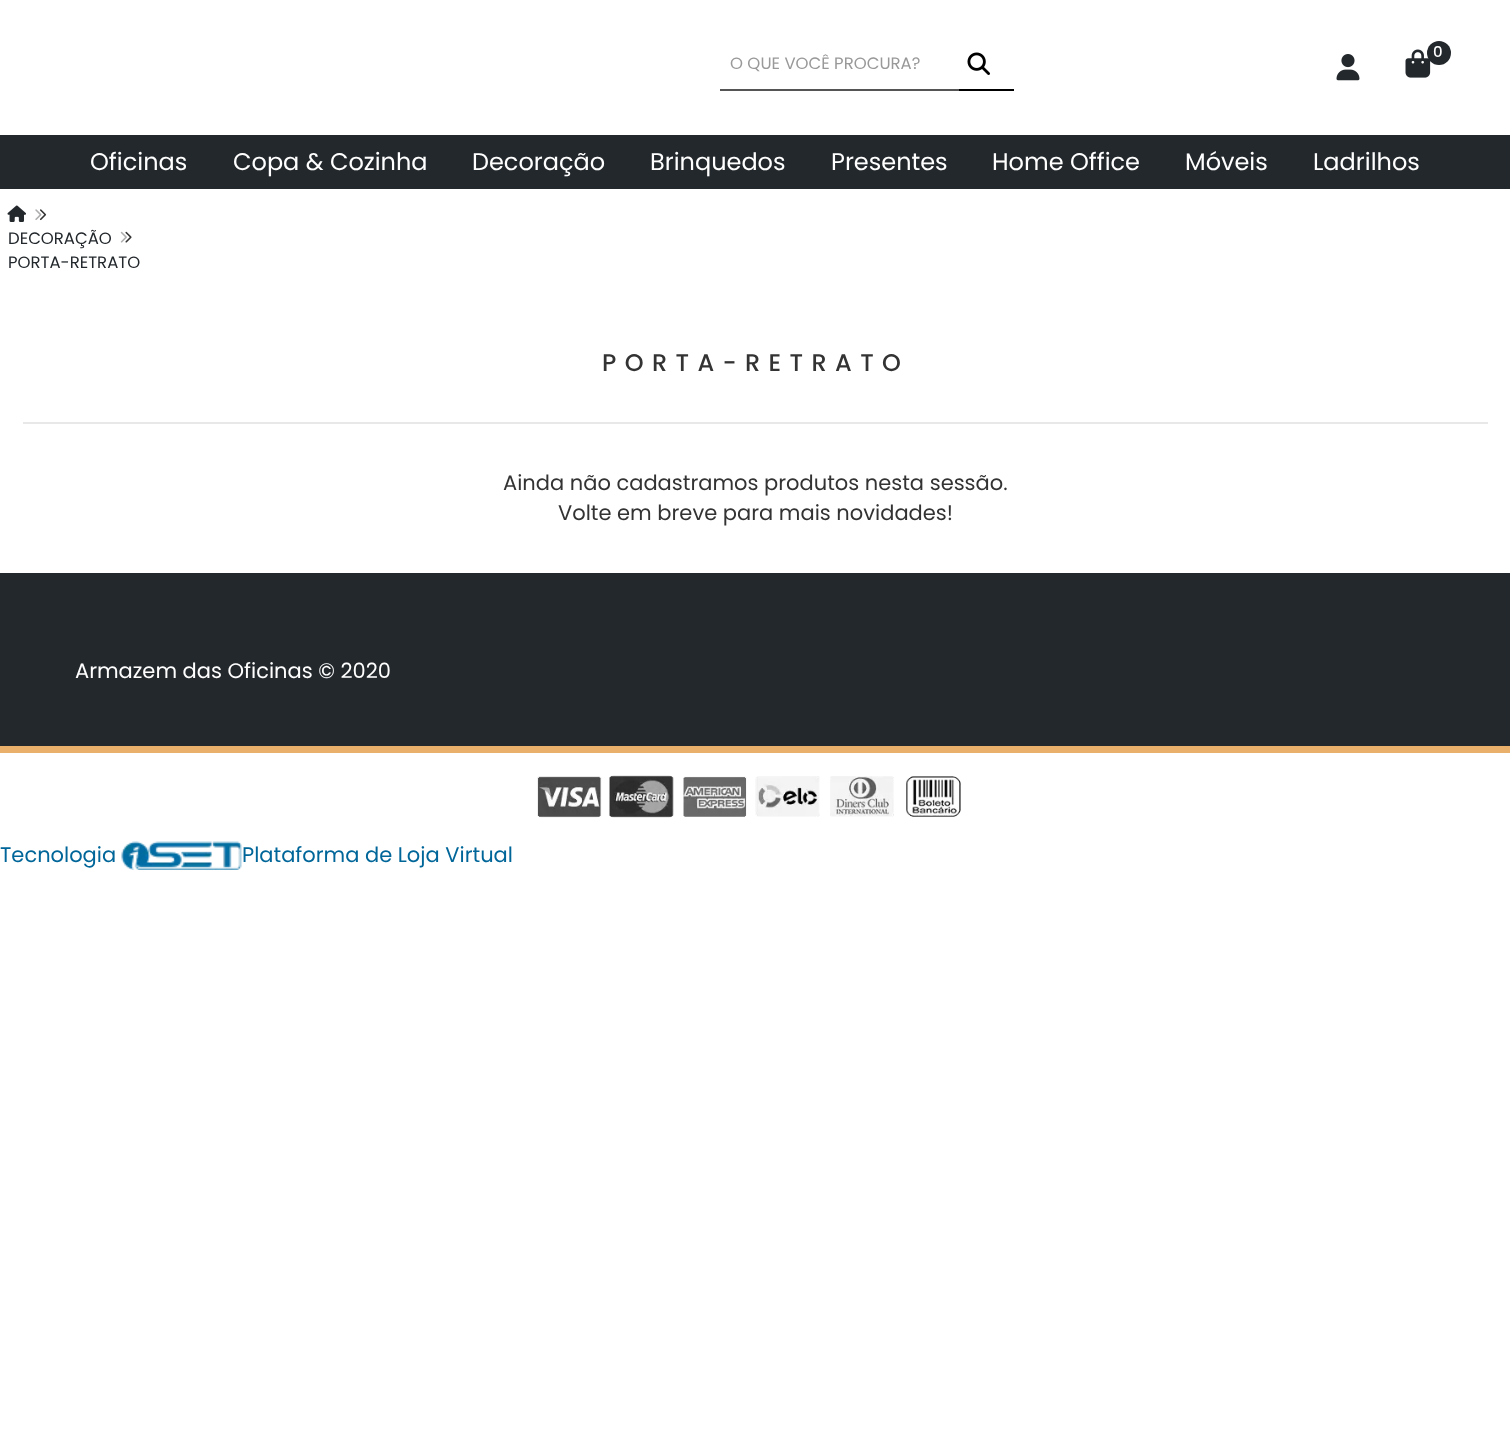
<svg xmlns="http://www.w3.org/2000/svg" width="1510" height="1436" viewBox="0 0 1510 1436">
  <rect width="100%" height="100%" fill="#ffffff"/>
  <image x="1405" y="49" width="26" height="29" href="img1.png"/>
  <circle cx="1439" cy="53" r="12" fill="#23282d"/>
  <text x="1433" y="57" font-family="Poppins" font-size="15" font-weight="500" fill="#ffffff">0</text>
  <image x="1336" y="54" width="24" height="27" href="img2.png"/>
  <rect x="720" y="89" width="240" height="2" fill="#555555"/>
  <text x="730" y="69" font-family="Poppins" font-size="16.5" fill="#999999">O QUE VOCÊ PROCURA?</text>
  <rect x="959" y="89" width="55" height="2" fill="#000000"/>
  <image x="967" y="52" width="23" height="23" href="img3.png"/>
  <rect x="0" y="135" width="1510" height="54" fill="#23282d"/>
  <text x="90" y="170" font-family="Poppins" font-size="24" fill="#ffffff">Oficinas</text>
  <text x="233" y="170" font-family="Poppins" font-size="24" fill="#ffffff">Copa &amp; Cozinha</text>
  <text x="472" y="170" font-family="Poppins" font-size="24" fill="#ffffff">Decoração</text>
  <text x="650" y="170" font-family="Poppins" font-size="24" fill="#ffffff">Brinquedos</text>
  <text x="831" y="170" font-family="Poppins" font-size="24" fill="#ffffff">Presentes</text>
  <text x="992" y="170" font-family="Poppins" font-size="24" fill="#ffffff">Home Office</text>
  <text x="1185" y="170" font-family="Poppins" font-size="24" fill="#ffffff">Móveis</text>
  <text x="1313" y="170" font-family="Poppins" font-size="24" fill="#ffffff">Ladrilhos</text>
  <image x="7" y="205" width="19" height="17" href="img4.png"/>
  <image x="35" y="209" width="12" height="12" href="img5.png"/>
  <text x="8" y="244" font-family="Poppins" font-size="16.5" fill="#23282d">DECORAÇÃO</text>
  <image x="120" y="231" width="12" height="12" href="img6.png"/>
  <text x="8" y="268" font-family="Poppins" font-size="16.5" fill="#23282d">PORTA-RETRATO</text>
  <rect x="23" y="422" width="1465" height="2" fill="#e8e8e8"/>
  <text x="602" y="371" font-family="Poppins" font-size="24" font-weight="500" letter-spacing="8.4" fill="#333333">PORTA-RETRATO</text>
  <text x="503" y="490" font-family="Poppins" font-size="21" fill="#333333">Ainda não cadastramos produtos nesta sessão.</text>
  <text x="558" y="520" font-family="Poppins" font-size="21" fill="#333333">Volte em breve para mais novidades!</text>
  <rect x="0" y="573" width="1510" height="173" fill="#23282d"/>
  <rect x="0" y="746" width="1510" height="7" fill="#e9b06b"/>
  <text x="75" y="678" font-family="Poppins" font-size="21" fill="#ffffff">Armazem das Oficinas © 2020</text>
  <image x="537" y="776" width="65" height="42" href="img7.png"/>
  <image x="609" y="775" width="65" height="43" href="img8.png"/>
  <image x="683" y="776" width="64" height="41" href="img9.png"/>
  <image x="755" y="776" width="65" height="41" href="img10.png"/>
  <image x="830" y="776" width="64" height="41" href="img11.png"/>
  <image x="906" y="776" width="55" height="41" href="img12.png"/>
  <text x="0" y="862" font-family="Poppins" font-size="21" fill="#006699">Tecnologia</text>
  <image x="121" y="841" width="121" height="29" href="img13.png"/>
  <text x="242" y="862" font-family="Poppins" font-size="21" fill="#006699">Plataforma de Loja Virtual</text>
</svg>
